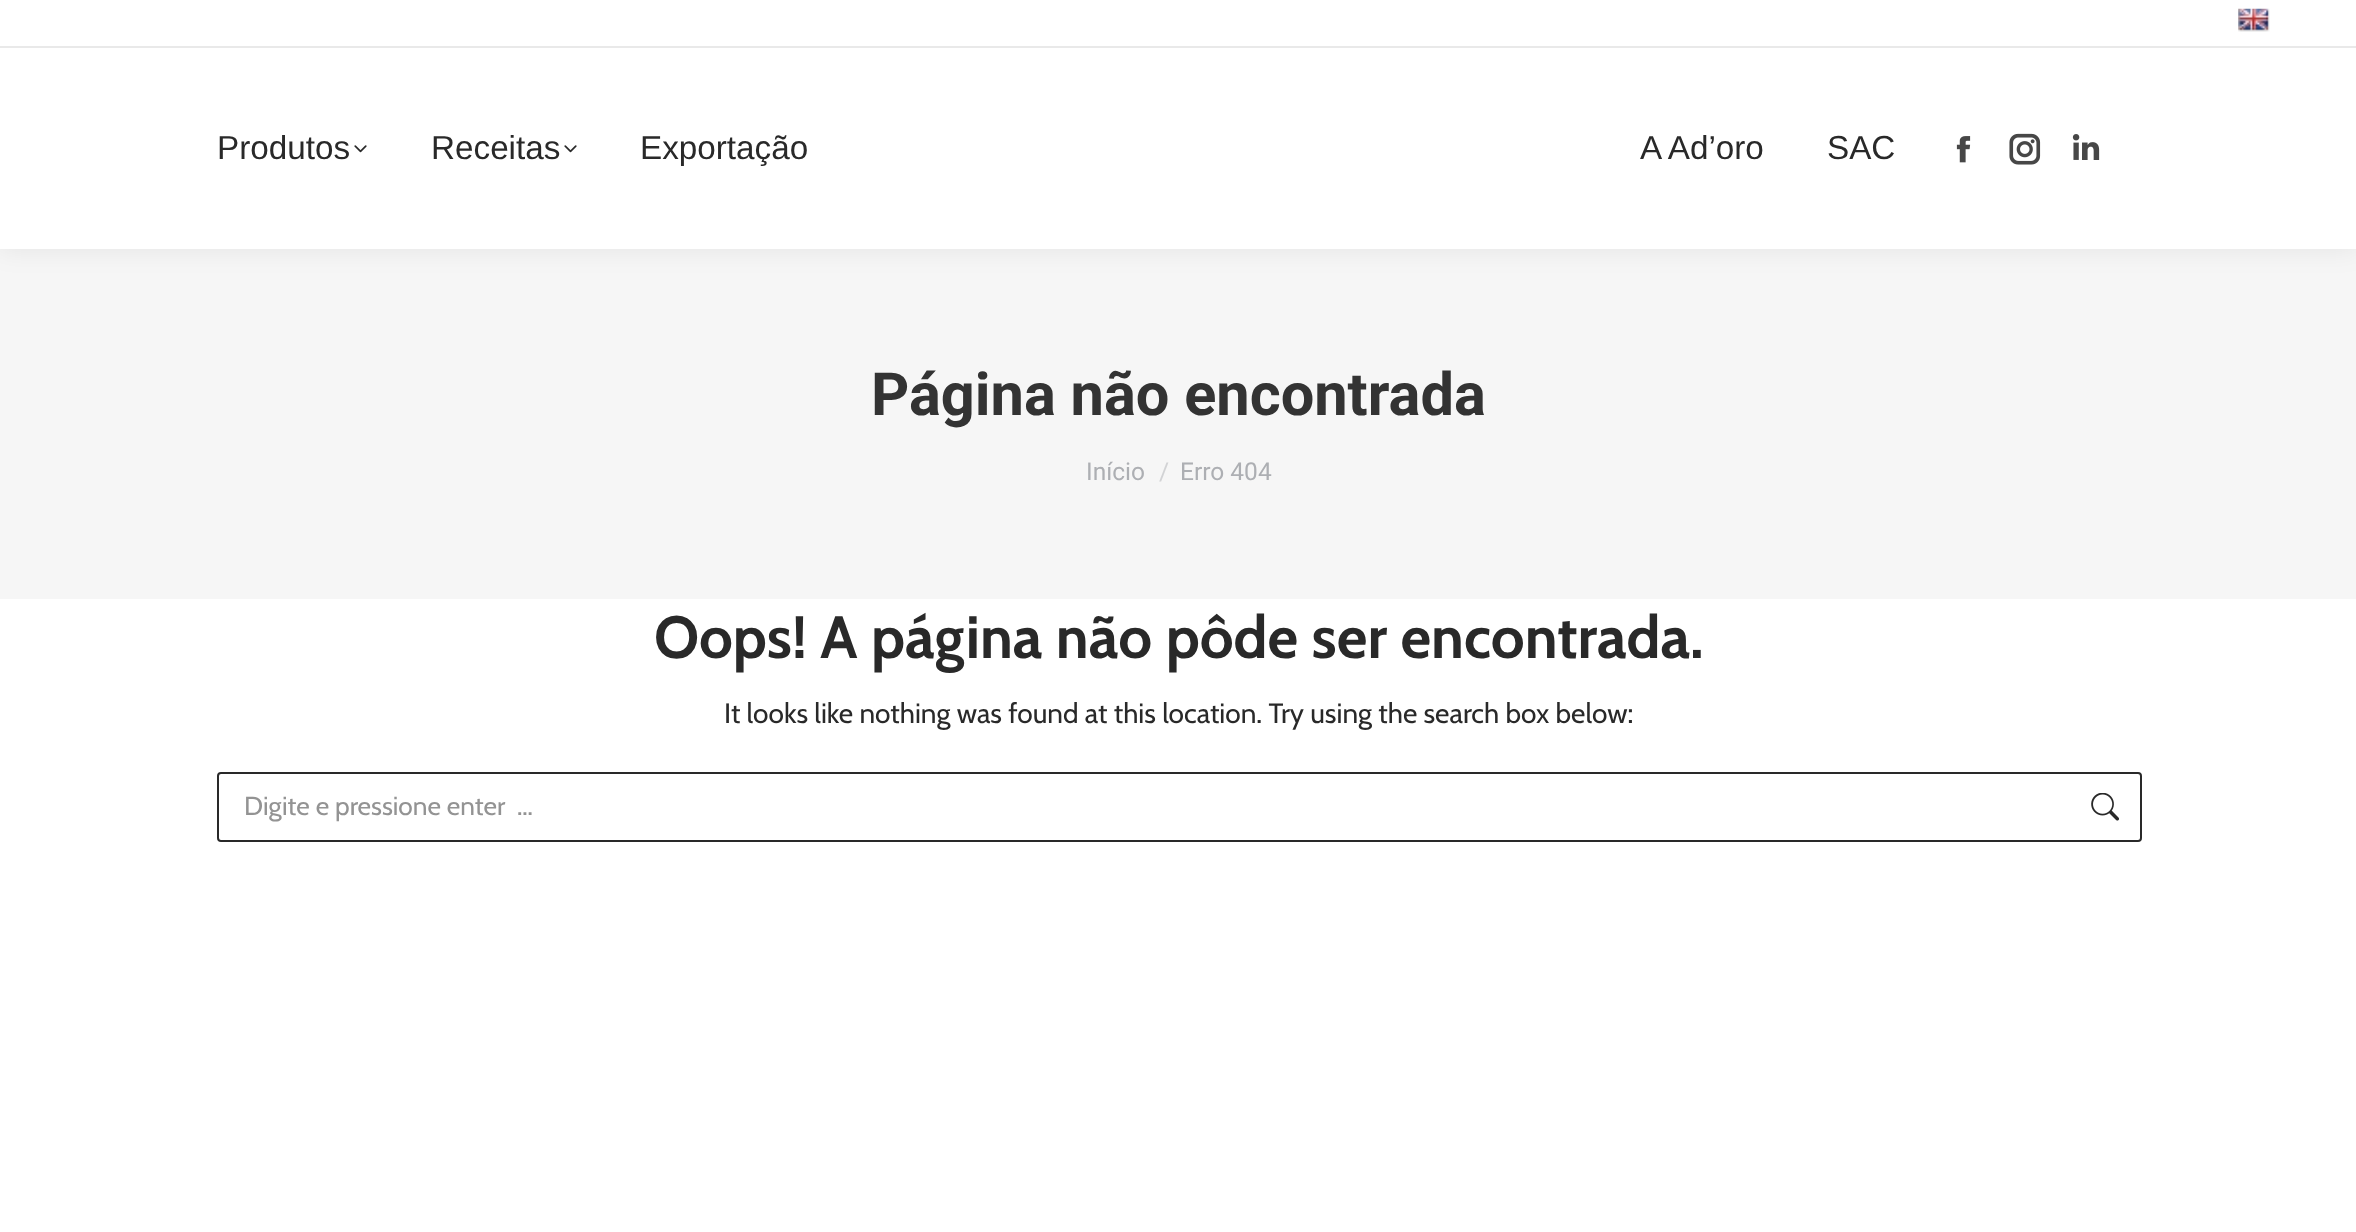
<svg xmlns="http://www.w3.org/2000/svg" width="2356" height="1232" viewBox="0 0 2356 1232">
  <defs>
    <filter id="blur1" x="-50%" y="-200%" width="200%" height="500%"><feGaussianBlur stdDeviation="13"/></filter>
  </defs>
  <rect width="100%" height="100%" fill="#ffffff"/>
  <rect x="0" y="249" width="2356" height="350" fill="#f6f6f6"/>
  <rect x="-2" y="-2" width="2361" height="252" fill="#000000" fill-opacity="0.07" filter="url(#blur1)"/>
  <rect x="0" y="0" width="2356" height="249" fill="#ffffff"/>
  <image x="2238" y="8" width="32" height="24" href="img1.png"/>
  <rect x="0" y="46" width="2356" height="2" fill="#e9e9e9"/>
  <text x="217" y="159" font-family="Liberation Sans" font-size="33.25" fill="#292929">Produtos</text>
  <image x="354" y="145" width="13" height="8" href="img2.png"/>
  <text x="431" y="159" font-family="Liberation Sans" font-size="33.25" fill="#292929">Receitas</text>
  <image x="564" y="145" width="13" height="8" href="img2.png"/>
  <text x="640" y="159" font-family="Liberation Sans" font-size="33.25" fill="#292929">Exportação</text>
  <text x="1640" y="159" font-family="Liberation Sans" font-size="33.25" fill="#292929">A Ad’oro</text>
  <text x="1827" y="159" font-family="Liberation Sans" font-size="33.25" fill="#292929">SAC</text>
  <image x="1956" y="136" width="15" height="27" href="img3.png"/>
  <image x="2009" y="133" width="32" height="32" href="img4.png"/>
  <image x="2072" y="134" width="28" height="26" href="img5.png"/>
  <text x="871" y="415" font-family="Roboto" font-size="59.5" font-weight="bold" fill="#333333">Página não encontrada</text>
  <text x="1086" y="480" font-family="Roboto" font-size="24.5" fill="#adafb3">Início</text>
  <text x="1159" y="480" font-family="Roboto" font-size="24.5" fill="#d2d3d5">/</text>
  <text x="1180" y="480" font-family="Roboto" font-size="24.5" fill="#adafb3">Erro 404</text>
  <text x="654" y="658" font-family="Cabin" font-size="59.5" font-weight="bold" fill="#292929">Oops! A página não pôde ser encontrada.</text>
  <text x="724" y="723" font-family="Cabin" font-size="28" fill="#292929">It looks like nothing was found at this location. Try using the search box below:</text>
  <rect x="218" y="773" width="1923" height="68" rx="3" fill="none" stroke="#292929" stroke-width="2"/>
  <text x="244" y="815" font-family="Cabin" font-size="26.25" fill="#939393" xml:space="preserve">Digite e pressione enter  …</text>
  <image x="2091" y="793" width="28" height="28" href="img6.png"/>
</svg>
